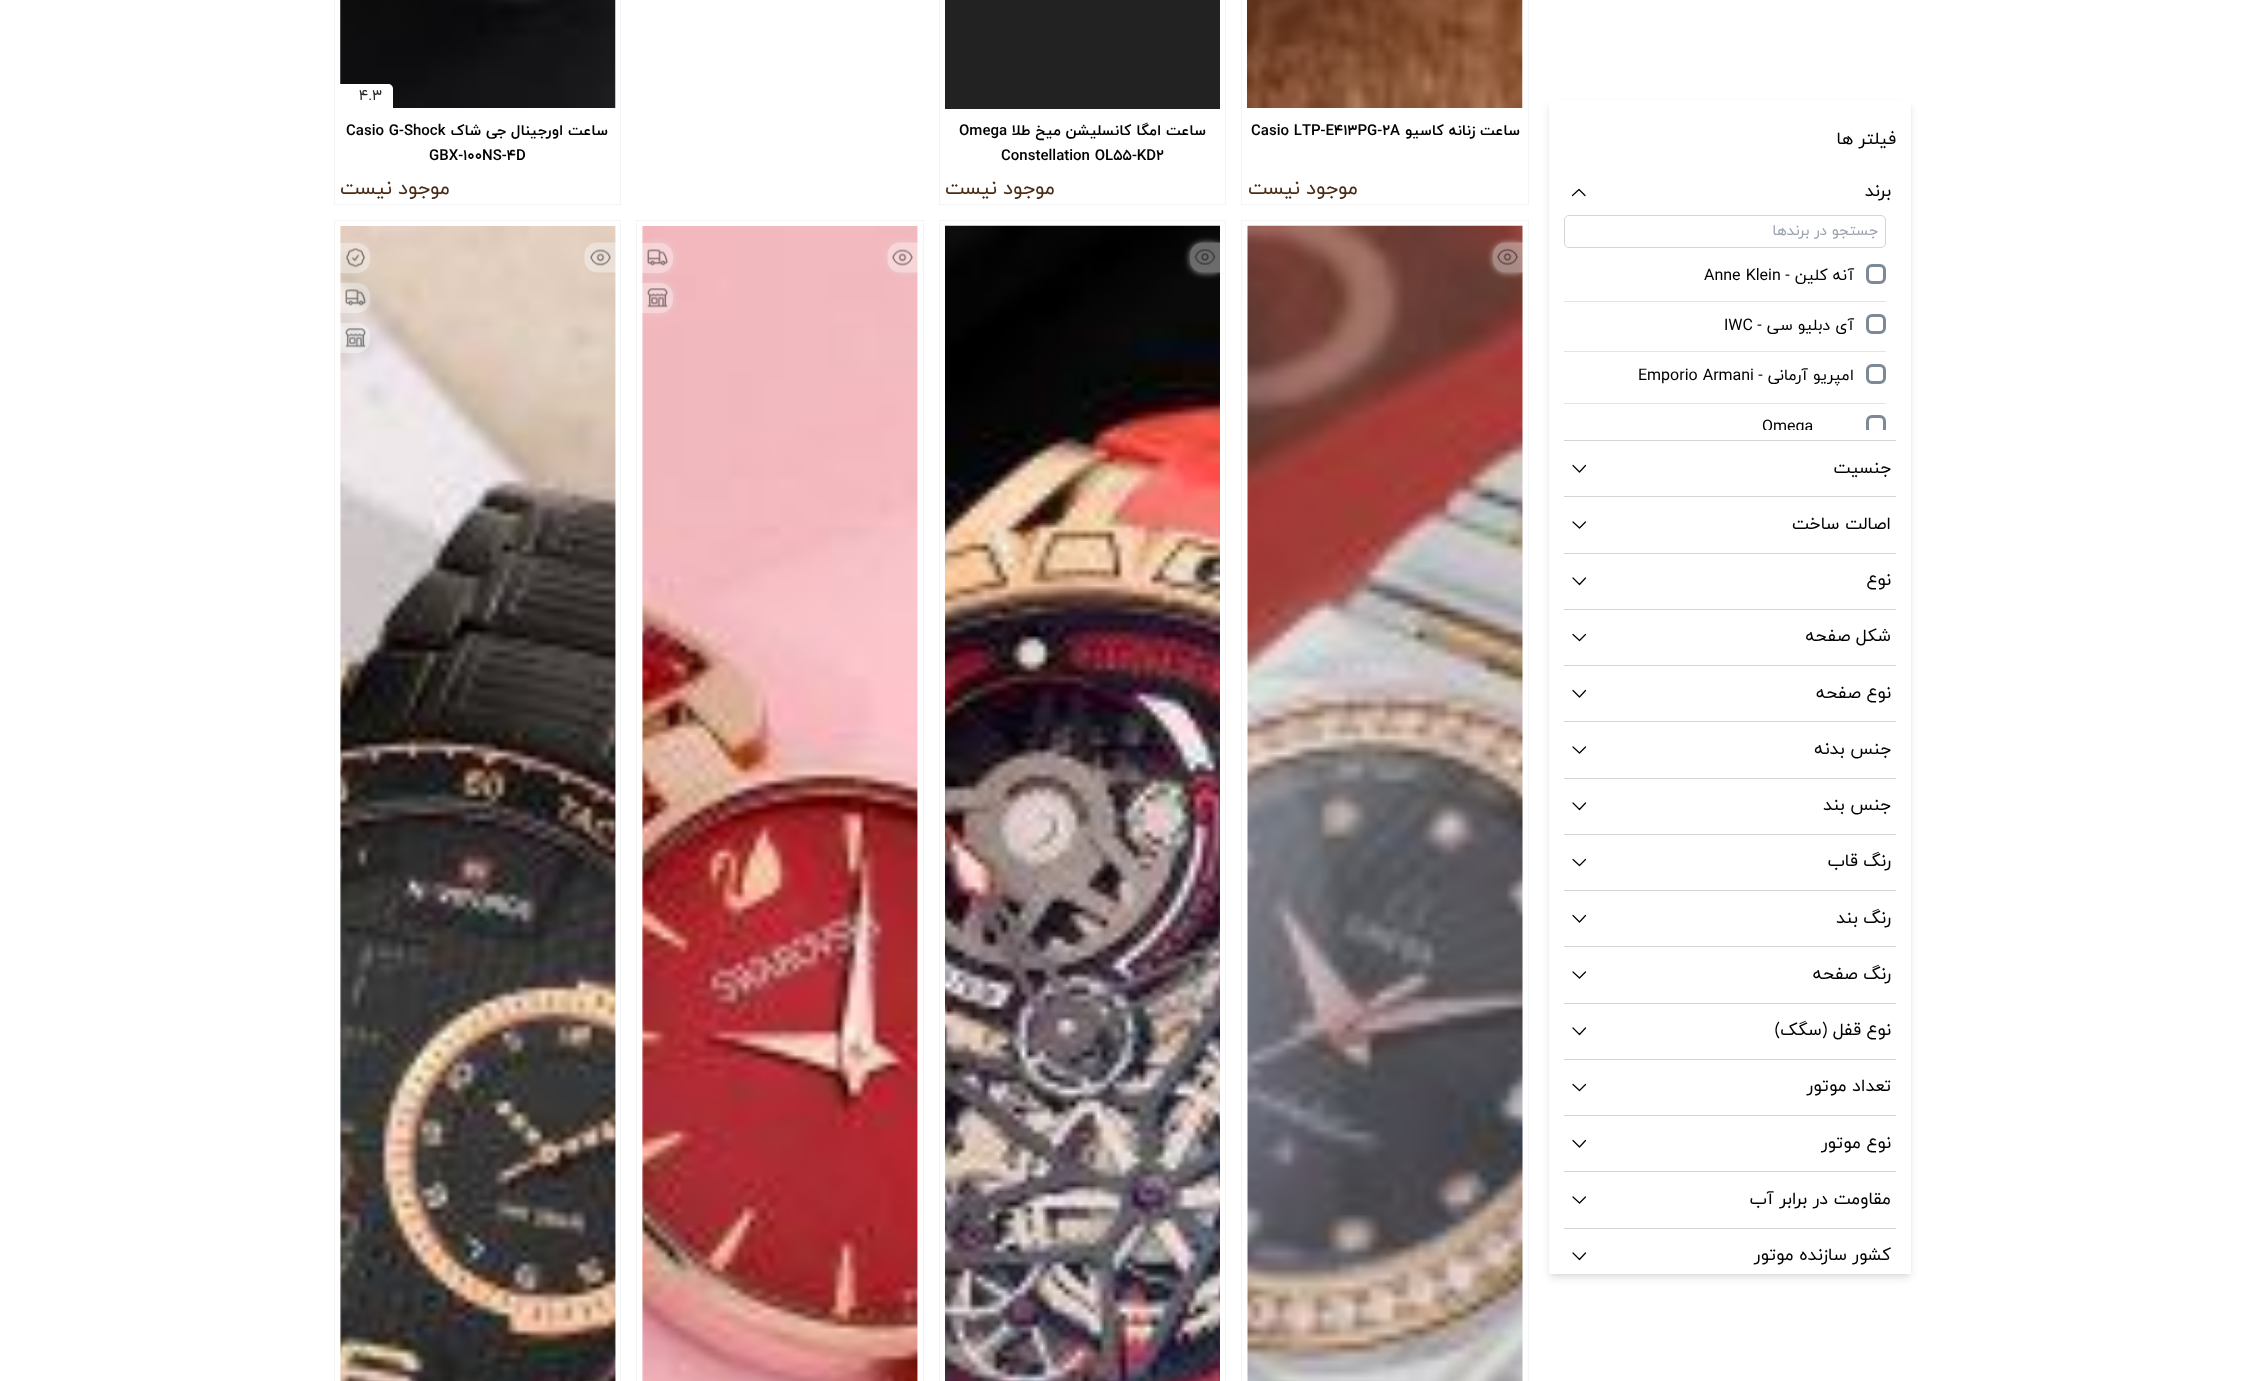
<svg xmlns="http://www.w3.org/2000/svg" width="2253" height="1381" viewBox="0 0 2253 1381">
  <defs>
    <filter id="blur1" x="-50%" y="-200%" width="200%" height="500%"><feGaussianBlur stdDeviation="2.5"/></filter>
    <filter id="blur2" x="-50%" y="-200%" width="200%" height="500%"><feGaussianBlur stdDeviation="4"/></filter>
    <clipPath id="clip1"><rect x="1564" y="210" width="322" height="220"/></clipPath>
    <clipPath id="clip2"><rect x="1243" y="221" width="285" height="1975"/></clipPath>
    <clipPath id="clip3"><path d="M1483 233H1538V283H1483ZM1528 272.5H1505.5C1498.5 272.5 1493 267 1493 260V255C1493 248 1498.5 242.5 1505.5 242.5H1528Z" clip-rule="evenodd"/></clipPath>
    <filter id="blur3" x="-50%" y="-200%" width="200%" height="500%"><feGaussianBlur stdDeviation="3"/></filter>
    <clipPath id="clip4"><rect x="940" y="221" width="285" height="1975"/></clipPath>
    <clipPath id="clip5"><path d="M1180 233H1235V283H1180ZM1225 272.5H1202.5C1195.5 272.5 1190 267 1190 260V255C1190 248 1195.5 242.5 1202.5 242.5H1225Z" clip-rule="evenodd"/></clipPath>
    <clipPath id="clip6"><rect x="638" y="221" width="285" height="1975"/></clipPath>
    <clipPath id="clip7"><path d="M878 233H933V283H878ZM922.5 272.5H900C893 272.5 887.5 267 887.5 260V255C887.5 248 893 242.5 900 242.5H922.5Z" clip-rule="evenodd"/></clipPath>
    <clipPath id="clip8"><path d="M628 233H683V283H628ZM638 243H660C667 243 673 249 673 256V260C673 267 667 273 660 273H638Z" clip-rule="evenodd"/></clipPath>
    <clipPath id="clip9"><path d="M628 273H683V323H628ZM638 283H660C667 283 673 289 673 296V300C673 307 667 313 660 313H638Z" clip-rule="evenodd"/></clipPath>
    <clipPath id="clip10"><rect x="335" y="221" width="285" height="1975"/></clipPath>
    <clipPath id="clip11"><path d="M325 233H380V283H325ZM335 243H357C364 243 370 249 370 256V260C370 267 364 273 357 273H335Z" clip-rule="evenodd"/></clipPath>
    <clipPath id="clip12"><path d="M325 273H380V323H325ZM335 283H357C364 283 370 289 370 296V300C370 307 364 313 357 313H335Z" clip-rule="evenodd"/></clipPath>
  </defs>
  <rect width="100%" height="100%" fill="#ffffff"/>
  <rect x="1551" y="105" width="358" height="1169" fill="#000000" fill-opacity="0.1" filter="url(#blur1)"/>
  <rect x="1550" y="106" width="360" height="1172" fill="#000000" fill-opacity="0.1" filter="url(#blur2)"/>
  <rect x="1549" y="100" width="362" height="1174" fill="#ffffff"/>
  <text x="1896" y="144" font-family="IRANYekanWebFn" font-size="17.5" direction="rtl" fill="#000000">فیلتر ها</text>
  <rect x="1564" y="440" width="332" height="1" fill="#d4d4d4"/>
  <text x="1891" y="196" font-family="IRANYekanWebFn" font-size="17.5" direction="rtl" fill="#000000">برند</text>
  <path d="M1572.5 195.5L1579 189.5L1585 195.5" fill="none" stroke="#000000" stroke-width="1.2" stroke-linecap="round" stroke-linejoin="round"/>
  <rect x="1564.5" y="215.5" width="321" height="32" rx="4.5" fill="none" stroke="#d4d4d4"/>
  <text x="1878" y="235" font-family="IRANYekanWebFn" font-size="15" direction="rtl" fill="#9ca3af">جستجو در برندها</text>
  <rect x="1564" y="301" width="322" height="1" fill="#e4e4e4"/>
  <rect x="1867.5" y="265.5" width="17" height="17" rx="4.5" fill="none" stroke="#7e8997" stroke-width="3"/>
  <text x="1854" y="280" font-family="IRANYekanWebFn" font-size="16" direction="rtl" fill="#000000">آنه کلین -</text>
  <text x="1704" y="280" font-family="IRANYekanWebFn" font-size="16" fill="#000000">Anne Klein</text>
  <rect x="1564" y="351" width="322" height="1" fill="#e4e4e4"/>
  <rect x="1867.5" y="315.5" width="17" height="17" rx="4.5" fill="none" stroke="#7e8997" stroke-width="3"/>
  <text x="1854" y="330" font-family="IRANYekanWebFn" font-size="16" direction="rtl" fill="#000000">آی دبلیو سی -</text>
  <text x="1724" y="330" font-family="IRANYekanWebFn" font-size="16" fill="#000000">IWC</text>
  <rect x="1564" y="403" width="322" height="1" fill="#e4e4e4"/>
  <rect x="1867.5" y="365.5" width="17" height="17" rx="4.5" fill="none" stroke="#7e8997" stroke-width="3"/>
  <text x="1854" y="380" font-family="IRANYekanWebFn" font-size="16" direction="rtl" fill="#000000">امپریو آرمانی -</text>
  <text x="1638" y="380" font-family="IRANYekanWebFn" font-size="16" fill="#000000">Emporio Armani</text>
  <g clip-path="url(#clip1)">
    <rect x="1867.5" y="416.5" width="17" height="17" rx="4.5" fill="none" stroke="#7e8997" stroke-width="3"/>
    <text x="1762" y="431" font-family="IRANYekanWebFn" font-size="16" fill="#000000">Omega</text>
  </g>
  <rect x="1564" y="496" width="332" height="1" fill="#d4d4d4"/>
  <text x="1891" y="473" font-family="IRANYekanWebFn" font-size="17.5" direction="rtl" fill="#000000">جنسیت</text>
  <path d="M1585.5 465.5L1579.5 472L1573 465.5" fill="none" stroke="#000000" stroke-width="1.2" stroke-linecap="round" stroke-linejoin="round"/>
  <rect x="1564" y="553" width="332" height="1" fill="#d4d4d4"/>
  <text x="1891" y="529" font-family="IRANYekanWebFn" font-size="17.5" direction="rtl" fill="#000000">اصالت ساخت</text>
  <path d="M1585.5 522L1579.5 528L1573 522" fill="none" stroke="#000000" stroke-width="1.2" stroke-linecap="round" stroke-linejoin="round"/>
  <rect x="1564" y="609" width="332" height="1" fill="#d4d4d4"/>
  <text x="1891" y="585" font-family="IRANYekanWebFn" font-size="17.5" direction="rtl" fill="#000000">نوع</text>
  <path d="M1585.5 578L1579.5 584.5L1573 578" fill="none" stroke="#000000" stroke-width="1.2" stroke-linecap="round" stroke-linejoin="round"/>
  <rect x="1564" y="665" width="332" height="1" fill="#d4d4d4"/>
  <text x="1891" y="641" font-family="IRANYekanWebFn" font-size="17.5" direction="rtl" fill="#000000">شکل صفحه</text>
  <path d="M1585.5 634.5L1579.5 640.5L1573 634.5" fill="none" stroke="#000000" stroke-width="1.2" stroke-linecap="round" stroke-linejoin="round"/>
  <rect x="1564" y="721" width="332" height="1" fill="#d4d4d4"/>
  <text x="1891" y="698" font-family="IRANYekanWebFn" font-size="17.5" direction="rtl" fill="#000000">نوع صفحه</text>
  <path d="M1585.5 690.5L1579.5 697L1573 690.5" fill="none" stroke="#000000" stroke-width="1.2" stroke-linecap="round" stroke-linejoin="round"/>
  <rect x="1564" y="778" width="332" height="1" fill="#d4d4d4"/>
  <text x="1891" y="754" font-family="IRANYekanWebFn" font-size="17.5" direction="rtl" fill="#000000">جنس بدنه</text>
  <path d="M1585.5 747L1579.5 753L1573 747" fill="none" stroke="#000000" stroke-width="1.2" stroke-linecap="round" stroke-linejoin="round"/>
  <rect x="1564" y="834" width="332" height="1" fill="#d4d4d4"/>
  <text x="1891" y="810" font-family="IRANYekanWebFn" font-size="17.5" direction="rtl" fill="#000000">جنس بند</text>
  <path d="M1585.5 803L1579.5 809.5L1573 803" fill="none" stroke="#000000" stroke-width="1.2" stroke-linecap="round" stroke-linejoin="round"/>
  <rect x="1564" y="890" width="332" height="1" fill="#d4d4d4"/>
  <text x="1891" y="866" font-family="IRANYekanWebFn" font-size="17.5" direction="rtl" fill="#000000">رنگ قاب</text>
  <path d="M1585.5 859.5L1579.5 865.5L1573 859.5" fill="none" stroke="#000000" stroke-width="1.2" stroke-linecap="round" stroke-linejoin="round"/>
  <rect x="1564" y="946" width="332" height="1" fill="#d4d4d4"/>
  <text x="1891" y="923" font-family="IRANYekanWebFn" font-size="17.5" direction="rtl" fill="#000000">رنگ بند</text>
  <path d="M1585.5 915.5L1579.5 922L1573 915.5" fill="none" stroke="#000000" stroke-width="1.2" stroke-linecap="round" stroke-linejoin="round"/>
  <rect x="1564" y="1003" width="332" height="1" fill="#d4d4d4"/>
  <text x="1891" y="979" font-family="IRANYekanWebFn" font-size="17.5" direction="rtl" fill="#000000">رنگ صفحه</text>
  <path d="M1585.5 972L1579.5 978L1573 972" fill="none" stroke="#000000" stroke-width="1.2" stroke-linecap="round" stroke-linejoin="round"/>
  <rect x="1564" y="1059" width="332" height="1" fill="#d4d4d4"/>
  <text x="1891" y="1035" font-family="IRANYekanWebFn" font-size="17.5" direction="rtl" fill="#000000">نوع قفل (سگک)</text>
  <path d="M1585.5 1028L1579.5 1034.5L1573 1028" fill="none" stroke="#000000" stroke-width="1.2" stroke-linecap="round" stroke-linejoin="round"/>
  <rect x="1564" y="1115" width="332" height="1" fill="#d4d4d4"/>
  <text x="1891" y="1091" font-family="IRANYekanWebFn" font-size="17.5" direction="rtl" fill="#000000">تعداد موتور</text>
  <path d="M1585.5 1084.5L1579.5 1090.5L1573 1084.5" fill="none" stroke="#000000" stroke-width="1.2" stroke-linecap="round" stroke-linejoin="round"/>
  <rect x="1564" y="1171" width="332" height="1" fill="#d4d4d4"/>
  <text x="1891" y="1148" font-family="IRANYekanWebFn" font-size="17.5" direction="rtl" fill="#000000">نوع موتور</text>
  <path d="M1585.5 1140.5L1579.5 1147L1573 1140.5" fill="none" stroke="#000000" stroke-width="1.2" stroke-linecap="round" stroke-linejoin="round"/>
  <rect x="1564" y="1228" width="332" height="1" fill="#d4d4d4"/>
  <text x="1891" y="1204" font-family="IRANYekanWebFn" font-size="17.5" direction="rtl" fill="#000000">مقاومت در برابر آب</text>
  <path d="M1585.5 1197L1579.5 1203L1573 1197" fill="none" stroke="#000000" stroke-width="1.2" stroke-linecap="round" stroke-linejoin="round"/>
  <text x="1891" y="1260" font-family="IRANYekanWebFn" font-size="17.5" direction="rtl" fill="#000000">کشور سازنده موتور</text>
  <path d="M1585.5 1253L1579.5 1259.5L1573 1253" fill="none" stroke="#000000" stroke-width="1.2" stroke-linecap="round" stroke-linejoin="round"/>
  <rect x="1241.5" y="-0.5" width="287" height="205" fill="none" stroke="#f3f4f6"/>
  <image x="1247" y="0" width="276" height="108" href="img1.png"/>
  <text x="1520" y="135" font-family="IRANYekanWebFn" font-size="15" font-weight="bold" direction="rtl" fill="#000000">ساعت زنانه کاسیو</text>
  <text x="1251" y="135" font-family="IRANYekanWebFn" font-size="15" font-weight="bold" fill="#000000">Casio LTP-E413PG-2A</text>
  <text x="1358" y="194" font-family="IRANYekanWebFn" font-size="20" direction="rtl" fill="#492c17">موجود نیست</text>
  <rect x="939.5" y="-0.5" width="286" height="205" fill="none" stroke="#f3f4f6"/>
  <rect x="945" y="0" width="275" height="109" fill="#222222"/>
  <text x="1206" y="135" font-family="IRANYekanWebFn" font-size="15" font-weight="bold" direction="rtl" fill="#000000">ساعت امگا کانسلیشن میخ طلا</text>
  <text x="959" y="135" font-family="IRANYekanWebFn" font-size="15" font-weight="bold" fill="#000000">Omega</text>
  <text x="1001" y="160" font-family="IRANYekanWebFn" font-size="15" font-weight="bold" fill="#000000">Constellation OL55-KD2</text>
  <text x="1055" y="194" font-family="IRANYekanWebFn" font-size="20" direction="rtl" fill="#492c17">موجود نیست</text>
  <rect x="334.5" y="-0.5" width="286" height="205" fill="none" stroke="#f3f4f6"/>
  <image x="340" y="0" width="276" height="108" href="img2.png"/>
  <path d="M340 84H388C391 84 393 86 393 89V109H340Z" fill="#ffffff"/>
  <text x="359" y="100" font-family="IRANYekanWebFn" font-size="15" fill="#262626">4.3</text>
  <text x="608" y="135" font-family="IRANYekanWebFn" font-size="15" font-weight="bold" direction="rtl" fill="#000000">ساعت اورجینال جی شاک</text>
  <text x="346" y="135" font-family="IRANYekanWebFn" font-size="15" font-weight="bold" fill="#000000">Casio G-Shock</text>
  <text x="429" y="160" font-family="IRANYekanWebFn" font-size="15" font-weight="bold" fill="#000000">GBX-100NS-4D</text>
  <text x="450" y="194" font-family="IRANYekanWebFn" font-size="20" direction="rtl" fill="#492c17">موجود نیست</text>
  <rect x="1241.5" y="220.5" width="287" height="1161" fill="none" stroke="#f3f4f6"/>
  <image x="1247" y="225" width="276" height="1156" href="img3.png"/>
  <g clip-path="url(#clip2)">
    <g clip-path="url(#clip3)">
      <rect x="1493" y="243" width="35" height="30" rx="13" fill="#dddddd" fill-opacity="0.7" filter="url(#blur3)"/>
    </g>
  </g>
  <path d="M1528 272.5H1505.5C1498.5 272.5 1493 267 1493 260V255C1493 248 1498.5 242.5 1505.5 242.5H1528Z" fill="#ffffff" fill-opacity="0.4"/>
  <image x="1497" y="248" width="21" height="18" href="img4.png"/>
  <rect x="939.5" y="220.5" width="286" height="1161" fill="none" stroke="#f3f4f6"/>
  <image x="945" y="225" width="275" height="1156" href="img5.png"/>
  <g clip-path="url(#clip4)">
    <g clip-path="url(#clip5)">
      <rect x="1190" y="243" width="35" height="30" rx="13" fill="#dddddd" fill-opacity="0.7" filter="url(#blur3)"/>
    </g>
  </g>
  <path d="M1225 272.5H1202.5C1195.5 272.5 1190 267 1190 260V255C1190 248 1195.5 242.5 1202.5 242.5H1225Z" fill="#ffffff" fill-opacity="0.4"/>
  <image x="1194" y="249" width="22" height="16" href="img6.png"/>
  <rect x="636.5" y="220.5" width="287" height="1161" fill="none" stroke="#f3f4f6"/>
  <image x="642" y="226" width="276" height="1155" href="img7.png"/>
  <g clip-path="url(#clip6)">
    <g clip-path="url(#clip7)">
      <rect x="888" y="243" width="35" height="30" rx="13" fill="#dddddd" fill-opacity="0.7" filter="url(#blur3)"/>
    </g>
  </g>
  <path d="M922.5 272.5H900C893 272.5 887.5 267 887.5 260V255C887.5 248 893 242.5 900 242.5H922.5Z" fill="#ffffff" fill-opacity="0.4"/>
  <image x="892" y="249" width="21" height="17" href="img8.png"/>
  <g clip-path="url(#clip6)">
    <g clip-path="url(#clip8)">
      <rect x="638" y="243" width="35" height="30" rx="13" fill="#dddddd" fill-opacity="0.7" filter="url(#blur3)"/>
    </g>
  </g>
  <path d="M638 243H660C667 243 673 249 673 256V260C673 267 667 273 660 273H638Z" fill="#ffffff" fill-opacity="0.4"/>
  <image x="647" y="249" width="21" height="17" href="img9.png"/>
  <g clip-path="url(#clip6)">
    <g clip-path="url(#clip9)">
      <rect x="638" y="283" width="35" height="30" rx="13" fill="#dddddd" fill-opacity="0.7" filter="url(#blur3)"/>
    </g>
  </g>
  <path d="M638 283H660C667 283 673 289 673 296V300C673 307 667 313 660 313H638Z" fill="#ffffff" fill-opacity="0.4"/>
  <image x="647" y="288" width="21" height="20" href="img10.png"/>
  <rect x="334.5" y="220.5" width="286" height="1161" fill="none" stroke="#f3f4f6"/>
  <image x="340" y="226" width="276" height="1155" href="img11.png"/>
  <path d="M619.5 272.5H597C590 272.5 584.5 267 584.5 260V255C584.5 248 590 242.5 597 242.5H619.5Z" fill="#ffffff" fill-opacity="0.4"/>
  <image x="590" y="249" width="21" height="17" href="img12.png"/>
  <g clip-path="url(#clip10)">
    <g clip-path="url(#clip11)">
      <rect x="335" y="243" width="35" height="30" rx="13" fill="#dddddd" fill-opacity="0.7" filter="url(#blur3)"/>
    </g>
  </g>
  <path d="M335 243H357C364 243 370 249 370 256V260C370 267 364 273 357 273H335Z" fill="#ffffff" fill-opacity="0.4"/>
  <image x="346" y="248" width="19" height="20" href="img13.png"/>
  <g clip-path="url(#clip10)">
    <g clip-path="url(#clip12)">
      <rect x="335" y="283" width="35" height="30" rx="13" fill="#dddddd" fill-opacity="0.7" filter="url(#blur3)"/>
    </g>
  </g>
  <path d="M335 283H357C364 283 370 289 370 296V300C370 307 364 313 357 313H335Z" fill="#ffffff" fill-opacity="0.4"/>
  <image x="345" y="289" width="21" height="17" href="img14.png"/>
  <path d="M335 323H357C364 323 370 329 370 336V340C370 347 364 353 357 353H335Z" fill="#ffffff" fill-opacity="0.4"/>
  <image x="345" y="328" width="21" height="20" href="img15.png"/>
</svg>
